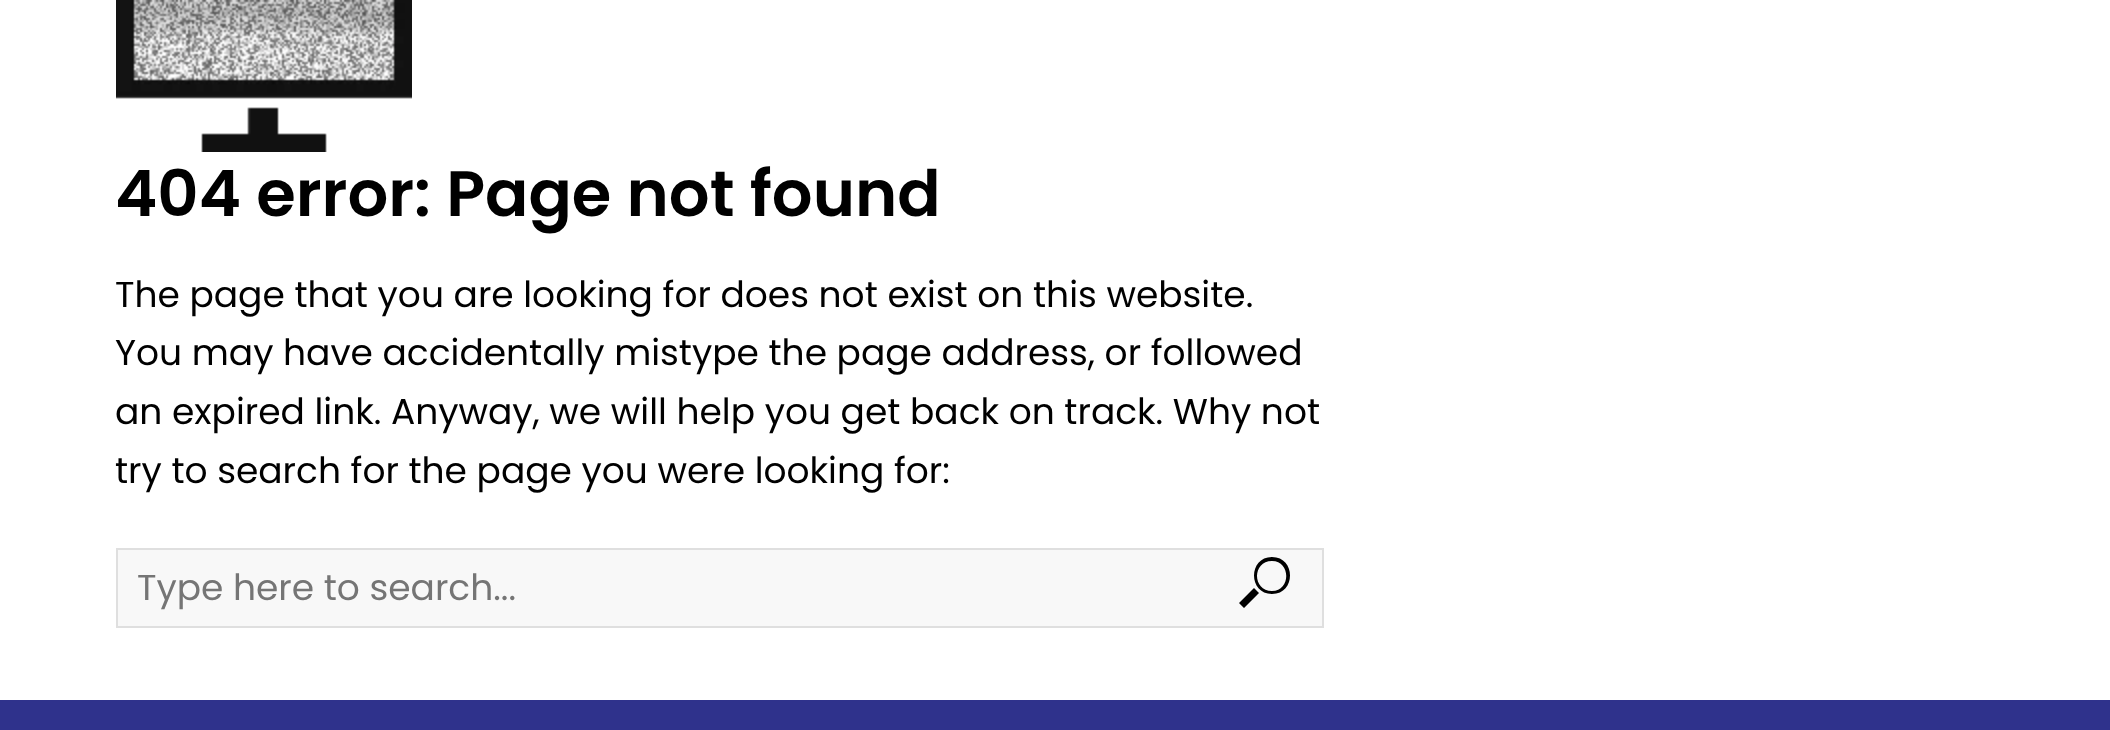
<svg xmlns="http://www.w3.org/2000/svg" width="2110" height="730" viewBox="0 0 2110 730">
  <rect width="100%" height="100%" fill="#ffffff"/>
  <image x="116" y="0" width="296" height="152" href="img1.png"/>
  <text x="115" y="216" font-family="Poppins" font-size="64" font-weight="600" fill="#000000">404 error: Page not found</text>
  <text x="115" y="307" font-family="Poppins" font-size="36" fill="#000000">The page that you are looking for does not exist on this website.</text>
  <text x="115" y="365" font-family="Poppins" font-size="36" fill="#000000">You may have accidentally mistype the page address, or followed</text>
  <text x="115" y="424" font-family="Poppins" font-size="36" fill="#000000">an expired link. Anyway, we will help you get back on track. Why not</text>
  <text x="115" y="483" font-family="Poppins" font-size="36" fill="#000000">try to search for the page you were looking for:</text>
  <rect x="117" y="549" width="1206" height="78" fill="#f8f8f8" stroke="#dfdfdf" stroke-width="2"/>
  <text x="137" y="600" font-family="Poppins" font-size="36" fill="#757575">Type here to search...</text>
  <path d="M1272 557C1248 557 1248 594 1272 594C1296 594 1296 557 1272 557ZM1272 591C1252 591 1252 561 1272 561C1291 561 1291 591 1272 591ZM1244 608L1239 603L1254 588L1259 593Z" fill="#000000"/>
  <rect x="0" y="700" width="2110" height="30" fill="#2f328c"/>
</svg>
